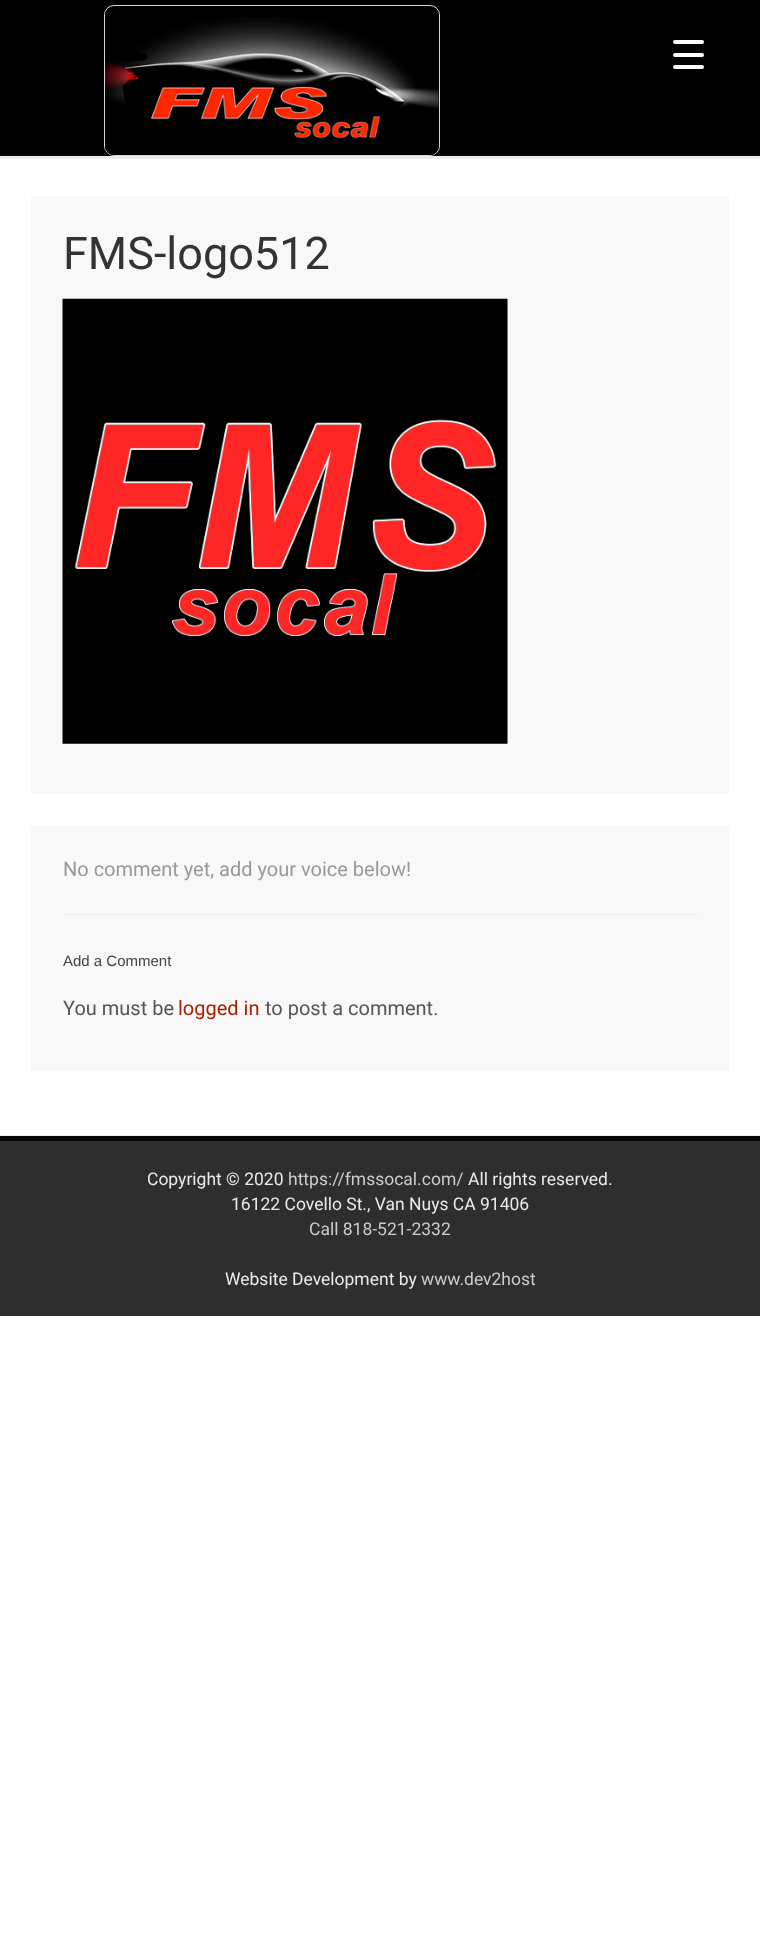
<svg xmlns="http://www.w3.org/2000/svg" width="760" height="1951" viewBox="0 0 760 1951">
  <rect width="100%" height="100%" fill="#ffffff"/>
  <rect x="0" y="0" width="760" height="156" fill="#000000"/>
  <rect x="0" y="156" width="760" height="3" fill="#eaeaea"/>
  <rect x="104.5" y="5.5" width="335" height="150" rx="9.5" fill="none" stroke="#d8d8d8"/>
  <image x="105" y="10" width="334" height="145" href="img1.png"/>
  <rect x="673" y="53" width="31" height="4" rx="2" fill="#ffffff"/>
  <rect x="673" y="40" width="31" height="4" rx="2" fill="#ffffff"/>
  <rect x="673" y="65" width="31" height="4" rx="2" fill="#ffffff"/>
  <rect x="31" y="196" width="698" height="598" fill="#f8f8f8"/>
  <text x="63" y="269" font-family="Roboto" font-size="45" fill="#333333">FMS-logo512</text>
  <image x="62" y="298" width="446" height="446" href="img2.png"/>
  <rect x="31" y="826" width="698" height="245" fill="#f8f8f8"/>
  <text x="63" y="876" font-family="Roboto" font-size="20" fill="#999999">No comment yet, add your voice below!</text>
  <rect x="63" y="914" width="635" height="1" fill="#ededed"/>
  <text x="63" y="966" font-family="Liberation Sans" font-size="15" fill="#444444">Add a Comment</text>
  <text x="63" y="1015" font-family="Roboto" font-size="20" fill="#555555">You must be</text>
  <text x="178" y="1015" font-family="Roboto" font-size="20" fill="#aa2100">logged in</text>
  <text x="265" y="1015" font-family="Roboto" font-size="20" fill="#555555">to post a comment.</text>
  <rect x="0" y="1136" width="760" height="5" fill="#000000"/>
  <rect x="0" y="1135" width="760" height="1" fill="#ededed"/>
  <rect x="0" y="1141" width="760" height="175" fill="#2e2e2e"/>
  <text x="147" y="1185" font-family="Roboto" font-size="17.5" fill="#eaeaea">Copyright © 2020</text>
  <text x="288" y="1185" font-family="Roboto" font-size="17.5" fill="#cccccc">https://fmssocal.com/</text>
  <text x="468" y="1185" font-family="Roboto" font-size="17.5" fill="#eaeaea">All rights reserved.</text>
  <text x="231" y="1210" font-family="Roboto" font-size="17.5" fill="#eaeaea">16122 Covello St., Van Nuys CA 91406</text>
  <text x="309" y="1235" font-family="Roboto" font-size="17.5" fill="#cccccc">Call 818-521-2332</text>
  <text x="225" y="1285" font-family="Roboto" font-size="17.5" fill="#eaeaea">Website Development by</text>
  <text x="421" y="1285" font-family="Roboto" font-size="17.5" fill="#cccccc">www.dev2host</text>
</svg>
